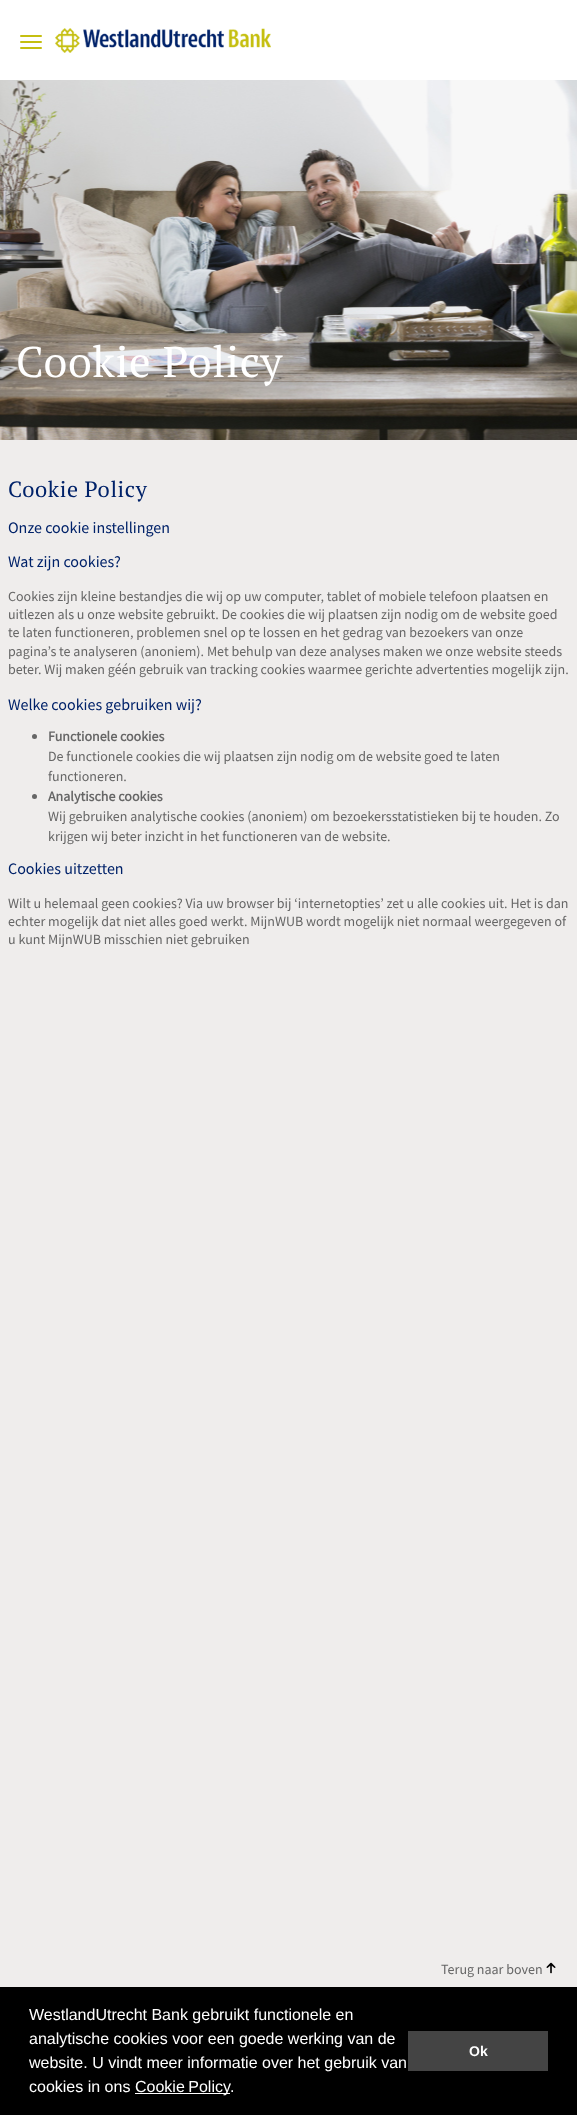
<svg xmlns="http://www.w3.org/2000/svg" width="577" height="2115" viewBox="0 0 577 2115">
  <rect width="100%" height="100%" fill="#efedec"/>
  <rect x="0" y="0" width="577" height="80" fill="#ffffff"/>
  <image x="55" y="28" width="216" height="25" href="img1.png"/>
  <rect x="20" y="35" width="22" height="2" rx="1" fill="#c5bf10"/>
  <rect x="20" y="41" width="22" height="2" rx="1" fill="#c5bf10"/>
  <rect x="20" y="47" width="22" height="2" rx="1" fill="#c5bf10"/>
  <image x="0" y="80" width="577" height="360" href="img2.png"/>
  <text x="16" y="377" font-family="PT Serif" font-size="43" letter-spacing="0.75" fill="#ffffff">Cookie Policy</text>
  <text x="8" y="497" font-family="PT Serif" font-size="22" letter-spacing="0.6" fill="#002269">Cookie Policy</text>
  <text x="8" y="533" font-family="Source Sans Pro" font-size="16" fill="#002269">Onze cookie instellingen</text>
  <text x="8" y="567" font-family="Source Sans Pro" font-size="16" fill="#002269">Wat zijn cookies?</text>
  <text x="8" y="601" font-family="Source Sans Pro" font-size="14" fill="#666666">Cookies zijn kleine bestandjes die wij op uw computer, tablet of mobiele telefoon plaatsen en</text>
  <text x="8" y="619" font-family="Source Sans Pro" font-size="14" fill="#666666">uitlezen als u onze website gebruikt. De cookies die wij plaatsen zijn nodig om de website goed</text>
  <text x="8" y="637" font-family="Source Sans Pro" font-size="14" fill="#666666">te laten functioneren, problemen snel op te lossen en het gedrag van bezoekers van onze</text>
  <text x="8" y="656" font-family="Source Sans Pro" font-size="14" fill="#666666">pagina’s te analyseren (anoniem). Met behulp van deze analyses maken we onze website steeds</text>
  <text x="8" y="674" font-family="Source Sans Pro" font-size="14" fill="#666666">beter. Wij maken géén gebruik van tracking cookies waarmee gerichte advertenties mogelijk zijn.</text>
  <text x="8" y="710" font-family="Source Sans Pro" font-size="16" fill="#002269">Welke cookies gebruiken wij?</text>
  <circle cx="34.5" cy="736.5" r="2.5" fill="#666666"/>
  <text x="48" y="741" font-family="Source Sans Pro" font-size="14" font-weight="bold" fill="#666666">Functionele cookies</text>
  <text x="48" y="761" font-family="Source Sans Pro" font-size="14" fill="#666666">De functionele cookies die wij plaatsen zijn nodig om de website goed te laten</text>
  <text x="48" y="781" font-family="Source Sans Pro" font-size="14" fill="#666666">functioneren.</text>
  <circle cx="34.5" cy="796.5" r="2.5" fill="#666666"/>
  <text x="48" y="801" font-family="Source Sans Pro" font-size="14" font-weight="bold" fill="#666666">Analytische cookies</text>
  <text x="48" y="821" font-family="Source Sans Pro" font-size="14" fill="#666666">Wij gebruiken analytische cookies (anoniem) om bezoekersstatistieken bij te houden. Zo</text>
  <text x="48" y="841" font-family="Source Sans Pro" font-size="14" fill="#666666">krijgen wij beter inzicht in het functioneren van de website.</text>
  <text x="8" y="874" font-family="Source Sans Pro" font-size="16" fill="#002269">Cookies uitzetten</text>
  <text x="8" y="908" font-family="Source Sans Pro" font-size="14" fill="#666666">Wilt u helemaal geen cookies? Via uw browser bij ‘internetopties’ zet u alle cookies uit. Het is dan</text>
  <text x="8" y="926" font-family="Source Sans Pro" font-size="14" fill="#666666">echter mogelijk dat niet alles goed werkt. MijnWUB wordt mogelijk niet normaal weergegeven of</text>
  <text x="8" y="944" font-family="Source Sans Pro" font-size="14" fill="#666666">u kunt MijnWUB misschien niet gebruiken</text>
  <text x="441" y="1974" font-family="Source Sans Pro" font-size="14" fill="#666666">Terug naar boven</text>
  <image x="546" y="1962" width="10" height="12" href="img3.png"/>
  <rect x="0" y="1987" width="577" height="128" fill="#000000"/>
  <text x="29" y="2020" font-family="Liberation Sans" font-size="16" fill="#ffffff">WestlandUtrecht Bank gebruikt functionele en</text>
  <text x="29" y="2044" font-family="Liberation Sans" font-size="16" fill="#ffffff">analytische cookies voor een goede werking van de</text>
  <text x="29" y="2068" font-family="Liberation Sans" font-size="16" fill="#ffffff">website. U vindt meer informatie over het gebruik van</text>
  <text x="29" y="2092" font-family="Liberation Sans" font-size="16" fill="#ffffff">cookies in ons</text>
  <rect x="135" y="2093" width="95" height="1" fill="#ffffff"/>
  <text x="135" y="2092" word-spacing="-1" font-family="Liberation Sans" font-size="16" fill="#ffffff">Cookie Policy</text>
  <text x="230" y="2092" font-family="Liberation Sans" font-size="16" fill="#ffffff">.</text>
  <rect x="408" y="2031" width="140" height="40" fill="#444444"/>
  <text x="469" y="2056" font-family="Liberation Sans" font-size="14" font-weight="bold" fill="#ffffff">Ok</text>
</svg>
